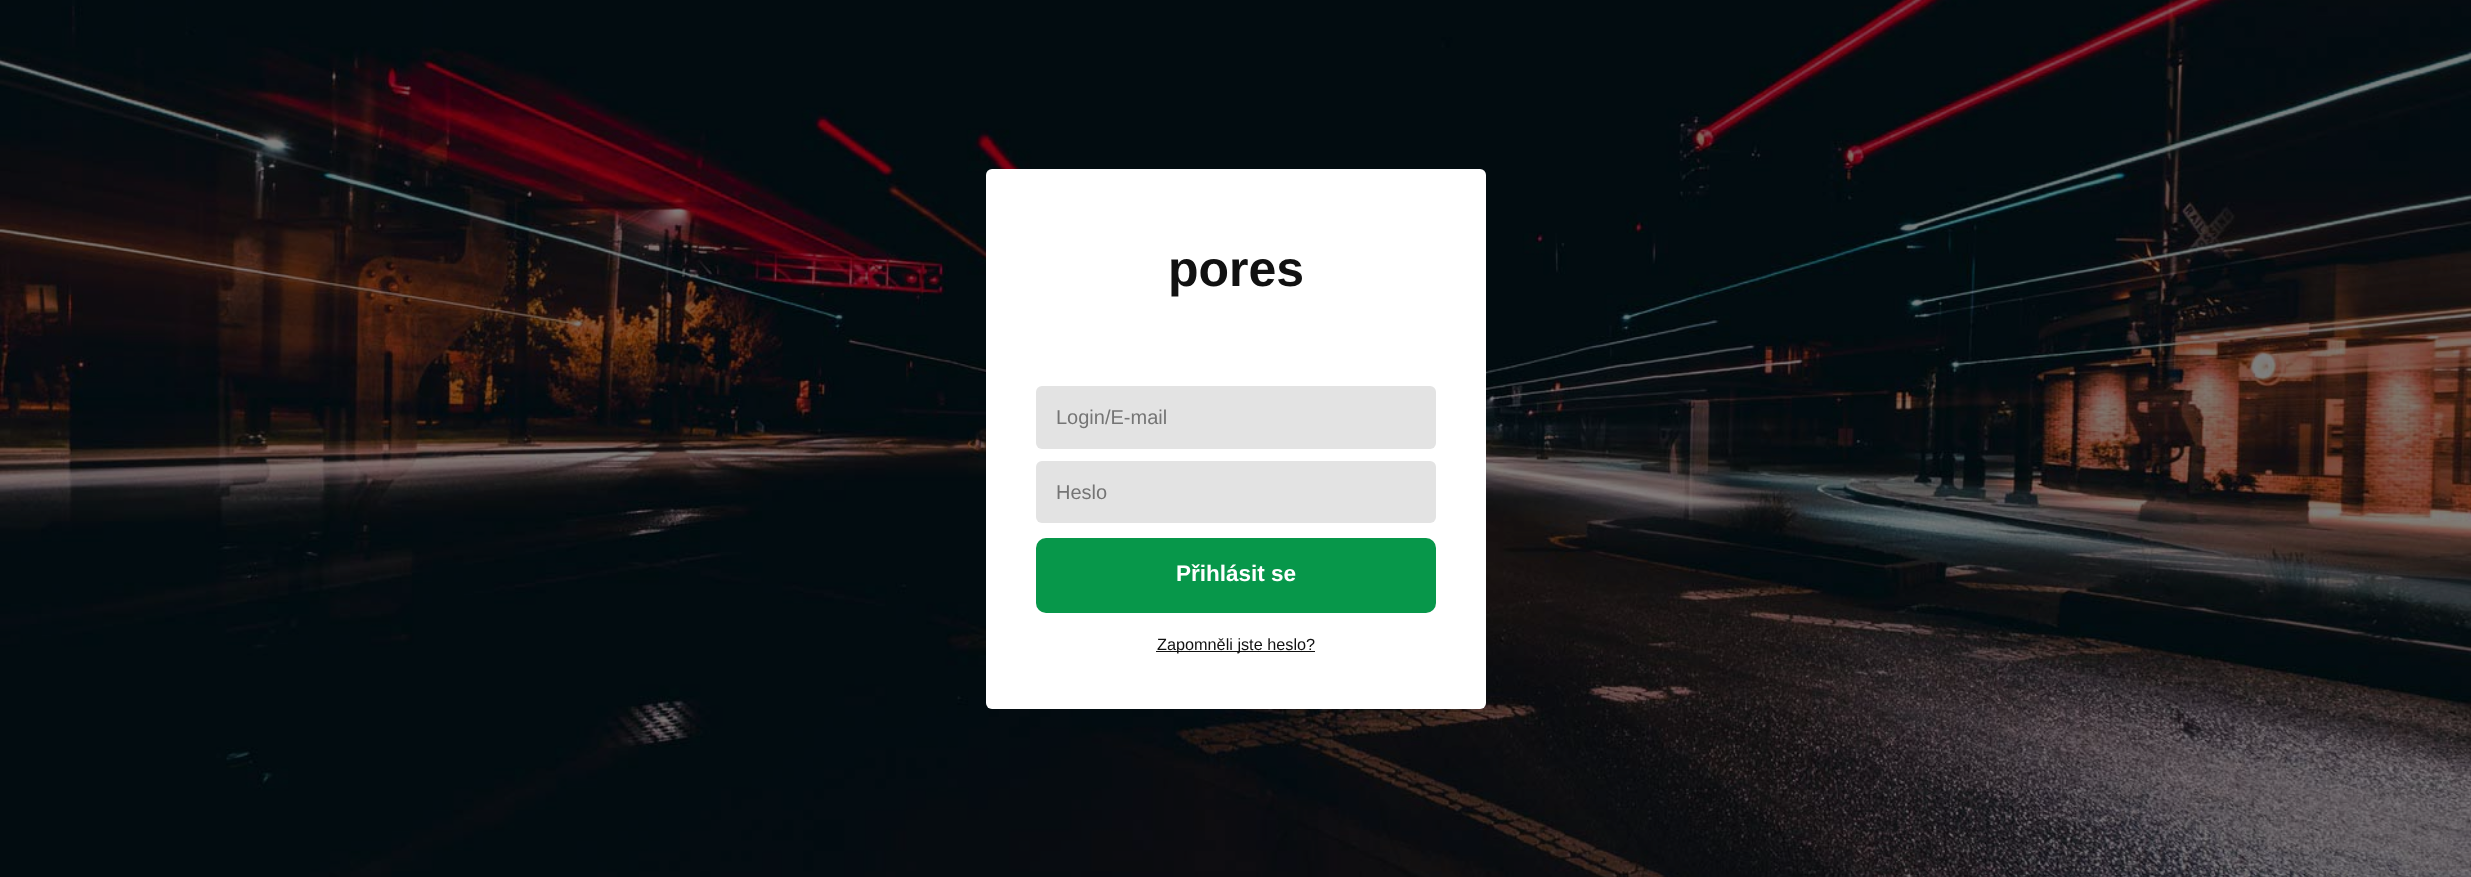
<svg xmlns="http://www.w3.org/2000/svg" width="2471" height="877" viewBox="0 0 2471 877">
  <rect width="100%" height="100%" fill="#ffffff"/>
  <image x="0" y="0" width="2471" height="877" href="img1.png"/>
  <rect x="986" y="169" width="500" height="540" rx="6" fill="#ffffff"/>
  <text x="1168" y="286" font-family="Liberation Sans" font-size="50" font-weight="bold" fill="#111111">pores</text>
  <rect x="1036" y="386" width="400" height="63" rx="6" fill="#e3e3e3"/>
  <text x="1056" y="424" font-family="Liberation Sans" font-size="20" fill="#757575">Login/E-mail</text>
  <rect x="1036" y="461" width="400" height="62" rx="6" fill="#e3e3e3"/>
  <text x="1056" y="499" font-family="Liberation Sans" font-size="20" fill="#757575">Heslo</text>
  <rect x="1036" y="538" width="400" height="75" rx="10" fill="#07974a"/>
  <text x="1176" y="581" font-family="Liberation Sans" font-size="22.5" font-weight="bold" fill="#ffffff">Přihlásit se</text>
  <rect x="1156" y="651" width="159" height="1" fill="#111111"/>
  <text x="1157" y="650" font-family="Liberation Sans" font-size="16.25" fill="#111111">Zapomněli jste heslo?</text>
</svg>
